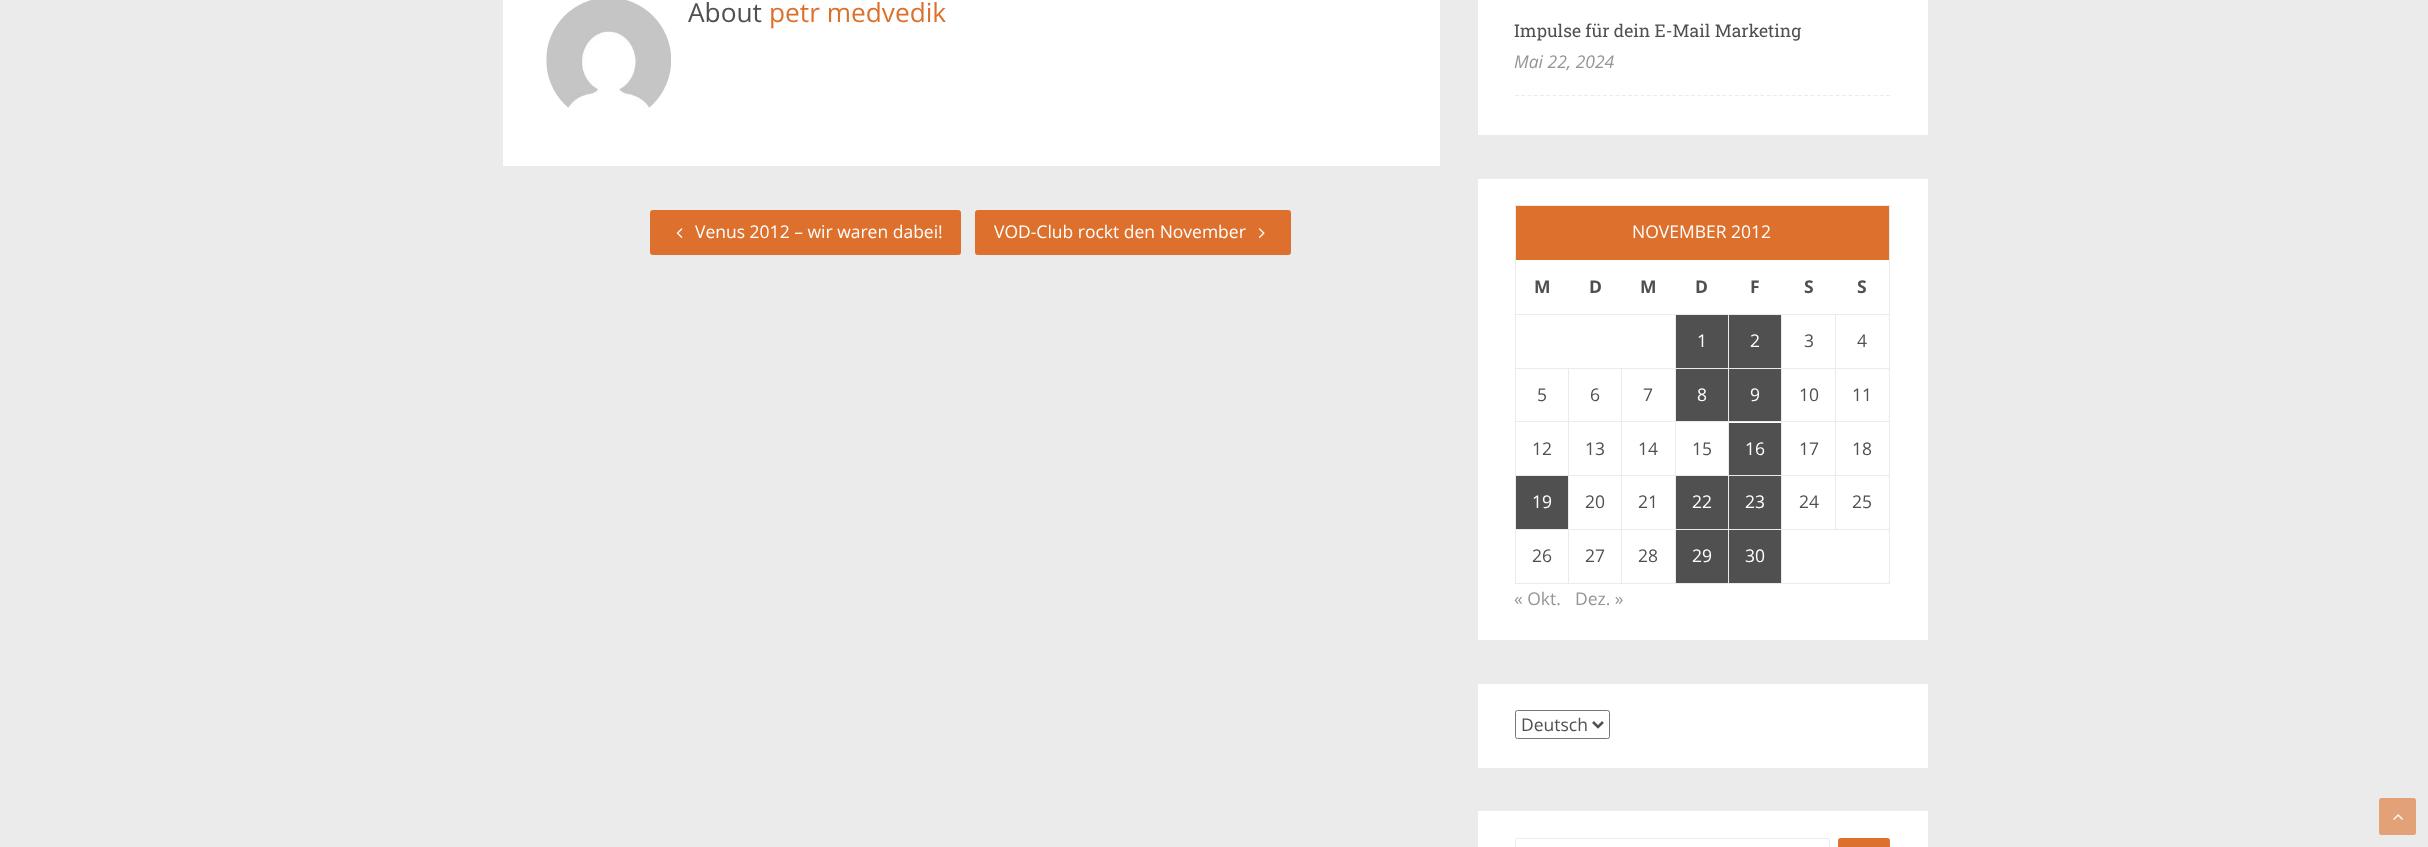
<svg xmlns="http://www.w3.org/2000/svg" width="2428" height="847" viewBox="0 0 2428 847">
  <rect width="100%" height="100%" fill="#ebebeb"/>
  <rect x="503" y="0" width="937" height="166" fill="#ffffff"/>
  <image x="546" y="0" width="125" height="108" href="img1.png"/>
  <text x="688" y="22" font-family="Open Sans" font-size="26.25" fill="#505050">About</text>
  <text x="769" y="22" font-family="Open Sans" font-size="26.25" fill="#dd702c">petr medvedik</text>
  <rect x="650.5" y="210.5" width="310" height="44" rx="2" fill="#dd702c" stroke="#dd702c"/>
  <image x="676" y="228" width="7" height="10" href="img2.png"/>
  <text x="695" y="238" font-family="Open Sans" font-size="17.5" fill="#ffffff">Venus 2012 – wir waren dabei!</text>
  <rect x="975.5" y="210.5" width="315" height="44" rx="2" fill="#dd702c" stroke="#dd702c"/>
  <text x="994" y="238" font-family="Open Sans" font-size="17.5" fill="#ffffff">VOD-Club rockt den November</text>
  <image x="1258" y="228" width="7" height="10" href="img3.png"/>
  <rect x="1478" y="0" width="450" height="135" fill="#ffffff"/>
  <path d="M1515 95.5H1890" fill="none" stroke="#ebebeb" stroke-width="1.2" stroke-dasharray="3.75 2.54"/>
  <text x="1514" y="37" font-family="Roboto Slab" font-size="17.5" fill="#505050">Impulse für dein E-Mail Marketing</text>
  <text x="1514" y="68" font-family="Open Sans" font-size="17.5" font-style="italic" fill="#959595">Mai 22, 2024</text>
  <rect x="1478" y="179" width="450" height="461" fill="#ffffff"/>
  <rect x="1515" y="205" width="375" height="1" fill="#ebebeb"/>
  <rect x="1889" y="205" width="1" height="379" fill="#ebebeb"/>
  <rect x="1515" y="583" width="375" height="1" fill="#ebebeb"/>
  <rect x="1515" y="205" width="1" height="379" fill="#ebebeb"/>
  <rect x="1516" y="206" width="373" height="54" fill="#dd702c"/>
  <text x="1632" y="238" font-family="Open Sans" font-size="17.5" fill="#ffffff">NOVEMBER 2012</text>
  <text x="1534" y="293" font-family="Open Sans" font-size="17.5" font-weight="bold" fill="#505050">M</text>
  <text x="1589" y="293" font-family="Open Sans" font-size="17.5" font-weight="bold" fill="#505050">D</text>
  <text x="1640" y="293" font-family="Open Sans" font-size="17.5" font-weight="bold" fill="#505050">M</text>
  <text x="1695" y="293" font-family="Open Sans" font-size="17.5" font-weight="bold" fill="#505050">D</text>
  <text x="1750" y="293" font-family="Open Sans" font-size="17.5" font-weight="bold" fill="#505050">F</text>
  <text x="1804" y="293" font-family="Open Sans" font-size="17.5" font-weight="bold" fill="#505050">S</text>
  <text x="1857" y="293" font-family="Open Sans" font-size="17.5" font-weight="bold" fill="#505050">S</text>
  <rect x="1835" y="314" width="55" height="1" fill="#ebebeb"/>
  <rect x="1835" y="368" width="55" height="1" fill="#ebebeb"/>
  <rect x="1835" y="421" width="55" height="1" fill="#ebebeb"/>
  <rect x="1835" y="475" width="55" height="1" fill="#ebebeb"/>
  <rect x="1781" y="529" width="109" height="1" fill="#ebebeb"/>
  <rect x="1835" y="475" width="1" height="55" fill="#ebebeb"/>
  <rect x="1781" y="475" width="55" height="1" fill="#ebebeb"/>
  <rect x="1835" y="421" width="1" height="55" fill="#ebebeb"/>
  <rect x="1781" y="421" width="55" height="1" fill="#ebebeb"/>
  <rect x="1835" y="368" width="1" height="55" fill="#ebebeb"/>
  <rect x="1781" y="368" width="55" height="1" fill="#ebebeb"/>
  <rect x="1835" y="314" width="1" height="55" fill="#ebebeb"/>
  <rect x="1781" y="314" width="55" height="1" fill="#ebebeb"/>
  <rect x="1781" y="529" width="1" height="55" fill="#ebebeb"/>
  <rect x="1728" y="529" width="55" height="1" fill="#ebebeb"/>
  <rect x="1781" y="475" width="1" height="55" fill="#ebebeb"/>
  <rect x="1728" y="475" width="55" height="1" fill="#ebebeb"/>
  <rect x="1781" y="421" width="1" height="55" fill="#ebebeb"/>
  <rect x="1728" y="421" width="55" height="1" fill="#ebebeb"/>
  <rect x="1781" y="368" width="1" height="55" fill="#ebebeb"/>
  <rect x="1728" y="368" width="55" height="1" fill="#ebebeb"/>
  <rect x="1781" y="314" width="1" height="55" fill="#ebebeb"/>
  <rect x="1728" y="314" width="55" height="1" fill="#ebebeb"/>
  <rect x="1728" y="529" width="1" height="55" fill="#ebebeb"/>
  <rect x="1675" y="529" width="54" height="1" fill="#ebebeb"/>
  <rect x="1728" y="475" width="1" height="55" fill="#ebebeb"/>
  <rect x="1675" y="475" width="54" height="1" fill="#ebebeb"/>
  <rect x="1728" y="421" width="1" height="55" fill="#ebebeb"/>
  <rect x="1675" y="421" width="54" height="1" fill="#ebebeb"/>
  <rect x="1728" y="368" width="1" height="55" fill="#ebebeb"/>
  <rect x="1675" y="368" width="54" height="1" fill="#ebebeb"/>
  <rect x="1728" y="314" width="1" height="55" fill="#ebebeb"/>
  <rect x="1675" y="314" width="54" height="1" fill="#ebebeb"/>
  <rect x="1675" y="529" width="1" height="55" fill="#ebebeb"/>
  <rect x="1621" y="529" width="55" height="1" fill="#ebebeb"/>
  <rect x="1675" y="475" width="1" height="55" fill="#ebebeb"/>
  <rect x="1621" y="475" width="55" height="1" fill="#ebebeb"/>
  <rect x="1675" y="421" width="1" height="55" fill="#ebebeb"/>
  <rect x="1621" y="421" width="55" height="1" fill="#ebebeb"/>
  <rect x="1675" y="368" width="1" height="55" fill="#ebebeb"/>
  <rect x="1621" y="368" width="55" height="1" fill="#ebebeb"/>
  <rect x="1675" y="314" width="1" height="55" fill="#ebebeb"/>
  <rect x="1515" y="314" width="161" height="1" fill="#ebebeb"/>
  <rect x="1676" y="315" width="52" height="53" fill="#505050"/>
  <text x="1697" y="347" font-family="Open Sans" font-size="17.5" fill="#ffffff">1</text>
  <rect x="1729" y="315" width="52" height="53" fill="#505050"/>
  <text x="1750" y="347" font-family="Open Sans" font-size="17.5" fill="#ffffff">2</text>
  <text x="1804" y="347" font-family="Open Sans" font-size="17.5" fill="#505050">3</text>
  <text x="1857" y="347" font-family="Open Sans" font-size="17.5" fill="#505050">4</text>
  <rect x="1621" y="529" width="1" height="55" fill="#ebebeb"/>
  <rect x="1568" y="529" width="55" height="1" fill="#ebebeb"/>
  <rect x="1621" y="475" width="1" height="55" fill="#ebebeb"/>
  <rect x="1568" y="475" width="55" height="1" fill="#ebebeb"/>
  <rect x="1621" y="421" width="1" height="55" fill="#ebebeb"/>
  <rect x="1568" y="421" width="55" height="1" fill="#ebebeb"/>
  <rect x="1621" y="368" width="1" height="55" fill="#ebebeb"/>
  <rect x="1568" y="368" width="55" height="1" fill="#ebebeb"/>
  <rect x="1568" y="529" width="1" height="55" fill="#ebebeb"/>
  <rect x="1515" y="529" width="54" height="1" fill="#ebebeb"/>
  <rect x="1568" y="475" width="1" height="55" fill="#ebebeb"/>
  <rect x="1515" y="475" width="54" height="1" fill="#ebebeb"/>
  <rect x="1568" y="421" width="1" height="55" fill="#ebebeb"/>
  <rect x="1515" y="421" width="54" height="1" fill="#ebebeb"/>
  <rect x="1568" y="368" width="1" height="55" fill="#ebebeb"/>
  <rect x="1515" y="368" width="54" height="1" fill="#ebebeb"/>
  <text x="1537" y="401" font-family="Open Sans" font-size="17.5" fill="#505050">5</text>
  <text x="1590" y="401" font-family="Open Sans" font-size="17.5" fill="#505050">6</text>
  <text x="1643" y="401" font-family="Open Sans" font-size="17.5" fill="#505050">7</text>
  <rect x="1676" y="369" width="52" height="52" fill="#505050"/>
  <text x="1697" y="401" font-family="Open Sans" font-size="17.5" fill="#ffffff">8</text>
  <rect x="1729" y="369" width="52" height="52" fill="#505050"/>
  <text x="1750" y="401" font-family="Open Sans" font-size="17.5" fill="#ffffff">9</text>
  <text x="1799" y="401" font-family="Open Sans" font-size="17.5" fill="#505050">10</text>
  <text x="1852" y="401" font-family="Open Sans" font-size="17.5" fill="#505050">11</text>
  <text x="1532" y="455" font-family="Open Sans" font-size="17.5" fill="#505050">12</text>
  <text x="1585" y="455" font-family="Open Sans" font-size="17.5" fill="#505050">13</text>
  <text x="1638" y="455" font-family="Open Sans" font-size="17.5" fill="#505050">14</text>
  <text x="1692" y="455" font-family="Open Sans" font-size="17.5" fill="#505050">15</text>
  <rect x="1729" y="423" width="52" height="52" fill="#505050"/>
  <text x="1745" y="455" font-family="Open Sans" font-size="17.5" fill="#ffffff">16</text>
  <text x="1799" y="455" font-family="Open Sans" font-size="17.5" fill="#505050">17</text>
  <text x="1852" y="455" font-family="Open Sans" font-size="17.5" fill="#505050">18</text>
  <rect x="1516" y="476" width="52" height="53" fill="#505050"/>
  <text x="1532" y="508" font-family="Open Sans" font-size="17.5" fill="#ffffff">19</text>
  <text x="1585" y="508" font-family="Open Sans" font-size="17.5" fill="#505050">20</text>
  <text x="1638" y="508" font-family="Open Sans" font-size="17.5" fill="#505050">21</text>
  <rect x="1676" y="476" width="52" height="53" fill="#505050"/>
  <text x="1692" y="508" font-family="Open Sans" font-size="17.5" fill="#ffffff">22</text>
  <rect x="1729" y="476" width="52" height="53" fill="#505050"/>
  <text x="1745" y="508" font-family="Open Sans" font-size="17.5" fill="#ffffff">23</text>
  <text x="1799" y="508" font-family="Open Sans" font-size="17.5" fill="#505050">24</text>
  <text x="1852" y="508" font-family="Open Sans" font-size="17.5" fill="#505050">25</text>
  <text x="1532" y="562" font-family="Open Sans" font-size="17.5" fill="#505050">26</text>
  <text x="1585" y="562" font-family="Open Sans" font-size="17.5" fill="#505050">27</text>
  <text x="1638" y="562" font-family="Open Sans" font-size="17.5" fill="#505050">28</text>
  <rect x="1676" y="530" width="52" height="53" fill="#505050"/>
  <text x="1692" y="562" font-family="Open Sans" font-size="17.5" fill="#ffffff">29</text>
  <rect x="1729" y="530" width="52" height="53" fill="#505050"/>
  <text x="1745" y="562" font-family="Open Sans" font-size="17.5" fill="#ffffff">30</text>
  <text x="1514" y="605" font-family="Open Sans" font-size="17.5" fill="#959595">« Okt.</text>
  <text x="1575" y="605" font-family="Open Sans" font-size="17.5" fill="#959595">Dez. »</text>
  <rect x="1478" y="684" width="450" height="84" fill="#ffffff"/>
  <rect x="1515.5" y="710.5" width="94" height="28" rx="2" fill="none" stroke="#767676"/>
  <path d="M1593 722L1598 727L1603 722" fill="none" stroke="#505050" stroke-width="2.5"/>
  <text x="1521" y="731" font-family="Open Sans" font-size="17.5" fill="#505050">Deutsch</text>
  <rect x="1478" y="811" width="450" height="36" fill="#ffffff"/>
  <rect x="1515.5" y="838.5" width="314" height="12" rx="2" fill="none" stroke="#ebebeb"/>
  <rect x="1838.5" y="838.5" width="51" height="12" rx="2" fill="#dd702c" stroke="#dd702c"/>
  <rect x="2379" y="798" width="37" height="37" rx="2.5" fill="#e3a178"/>
  <image x="2393" y="814" width="10" height="6" href="img4.png"/>
</svg>
